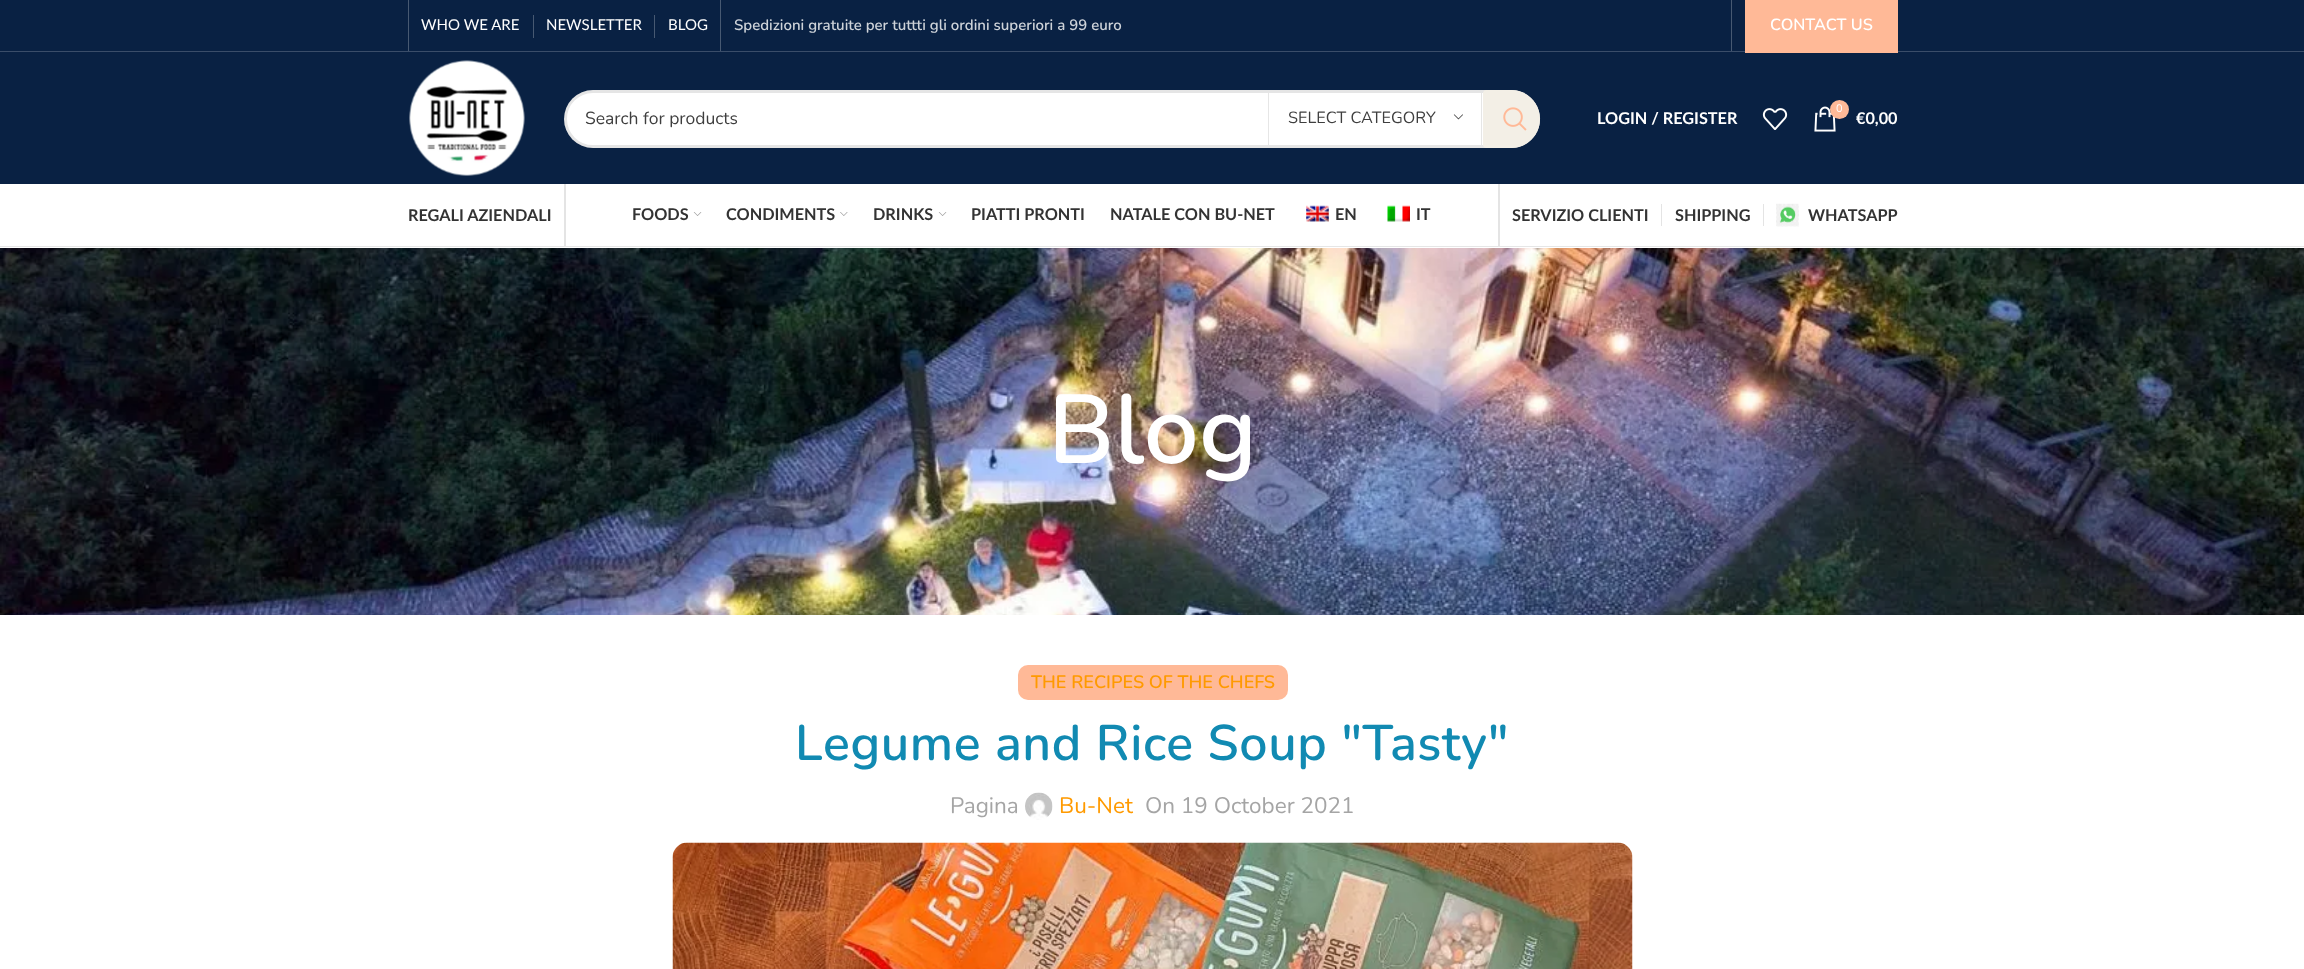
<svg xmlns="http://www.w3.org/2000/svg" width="2304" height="969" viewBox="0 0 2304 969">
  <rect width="100%" height="100%" fill="#ffffff"/>
  <rect x="0" y="0" width="2304" height="184" fill="#092143"/>
  <rect x="0" y="51" width="2304" height="1" fill="#3a4d69"/>
  <rect x="408" y="0" width="1" height="51" fill="#475972"/>
  <text x="421" y="30" font-family="Lato" font-size="15" fill="#ffffff">WHO WE ARE</text>
  <rect x="533" y="15" width="1" height="23" fill="#475972"/>
  <text x="546" y="30" font-family="Lato" font-size="15" fill="#ffffff">NEWSLETTER</text>
  <rect x="654" y="15" width="1" height="23" fill="#475972"/>
  <text x="668" y="30" font-family="Lato" font-size="15" fill="#ffffff">BLOG</text>
  <rect x="720" y="0" width="1" height="51" fill="#475972"/>
  <text x="734" y="30" font-family="Nunito" font-size="15" font-weight="600" fill="#ced3d9">Spedizioni gratuite per tuttti gli ordini superiori a 99 euro</text>
  <rect x="1731" y="0" width="1" height="51" fill="#475972"/>
  <rect x="1745" y="0" width="153" height="53" fill="#ffb997"/>
  <text x="1770" y="30" font-family="Nunito" font-size="16.25" font-weight="600" fill="#ffffff">CONTACT US</text>
  <image x="409" y="60" width="116" height="116" href="img1.png"/>
  <rect x="564" y="90" width="976" height="58" rx="29" fill="#ffffff"/>
  <rect x="565.5" y="91.5" width="973" height="55" rx="27.5" fill="none" stroke="#000000" stroke-opacity="0.1" stroke-width="3"/>
  <text x="585" y="124" font-family="Nunito" font-size="17.5" fill="#3e3e3e">Search for products</text>
  <rect x="1481" y="93" width="1" height="52" fill="#e6e6e6"/>
  <rect x="1268" y="93" width="1" height="52" fill="#e6e6e6"/>
  <text x="1288" y="123" font-family="Nunito" font-size="16.25" fill="#3e3e3e">SELECT CATEGORY</text>
  <image x="1453" y="114" width="10" height="6" href="img2.png"/>
  <path d="M1486 90H1511.5C1527 90 1540 103 1540 118.5V119.5C1540 135 1527 148 1511.5 148H1486C1484.5 148 1483 146.5 1483 145V93C1483 91.5 1484.5 90 1486 90Z" fill="#f3efe6"/>
  <image x="1503" y="107" width="24" height="24" href="img3.png"/>
  <text x="1597" y="124" font-family="Lato" font-size="16.25" font-weight="bold" fill="#ffffff">LOGIN / REGISTER</text>
  <image x="1762" y="108" width="26" height="22" href="img4.png"/>
  <image x="1814" y="106" width="22" height="26" href="img5.png"/>
  <circle cx="1839.5" cy="109.5" r="9.5" fill="#ffb997"/>
  <text x="1836" y="112" font-family="Nunito" font-size="11" fill="#ffffff">0</text>
  <text x="1856" y="124" font-family="Lato" font-size="16.25" font-weight="bold" fill="#ffffff">€0,00</text>
  <rect x="0" y="246" width="2304" height="1" fill="#e6e6e6"/>
  <text x="408" y="221" font-family="Lato" font-size="16.25" font-weight="bold" fill="#333333">REGALI AZIENDALI</text>
  <rect x="564" y="184" width="2" height="62" fill="#e4e4e4"/>
  <text x="632" y="220" font-family="Lato" font-size="16.25" font-weight="bold" fill="#333333">FOODS</text>
  <image x="693" y="212" width="9" height="4" href="img6.png"/>
  <text x="726" y="220" font-family="Lato" font-size="16.25" font-weight="bold" fill="#333333">CONDIMENTS</text>
  <image x="840" y="212" width="8" height="4" href="img7.png"/>
  <text x="873" y="220" font-family="Lato" font-size="16.25" font-weight="bold" fill="#333333">DRINKS</text>
  <image x="938" y="212" width="9" height="4" href="img6.png"/>
  <text x="971" y="220" font-family="Lato" font-size="16.25" font-weight="bold" fill="#333333">PIATTI PRONTI</text>
  <text x="1110" y="220" font-family="Lato" font-size="16.25" font-weight="bold" fill="#333333">NATALE CON BU-NET</text>
  <image x="1306" y="205" width="23" height="17" href="img8.png"/>
  <text x="1335" y="220" font-family="Lato" font-size="16.25" font-weight="bold" fill="#333333">EN</text>
  <image x="1387" y="205" width="23" height="17" href="img9.png"/>
  <text x="1416" y="220" font-family="Lato" font-size="16.25" font-weight="bold" fill="#333333">IT</text>
  <rect x="1498" y="184" width="2" height="62" fill="#e4e4e4"/>
  <text x="1512" y="221" font-family="Lato" font-size="16.25" font-weight="bold" fill="#333333">SERVIZIO CLIENTI</text>
  <rect x="1661" y="204" width="1" height="22" fill="#e4e4e4"/>
  <text x="1675" y="221" font-family="Lato" font-size="16.25" font-weight="bold" fill="#333333">SHIPPING</text>
  <rect x="1763" y="204" width="1" height="22" fill="#e4e4e4"/>
  <image x="1776" y="203" width="23" height="24" href="img10.png"/>
  <text x="1808" y="221" font-family="Lato" font-size="16.25" font-weight="bold" fill="#333333">WHATSAPP</text>
  <image x="0" y="248" width="2304" height="367" href="img11.png"/>
  <text x="1048" y="463" font-family="Nunito" font-size="97.5" font-weight="600" fill="#ffffff">Blog</text>
  <rect x="1018" y="665" width="270" height="35" rx="10" fill="#ffb997"/>
  <text x="1031" y="688" font-family="Nunito" font-size="18" font-weight="600" fill="#ff9a00">THE RECIPES OF THE CHEFS</text>
  <text x="795" y="760" font-family="Nunito" font-size="50" font-weight="600" letter-spacing="0.6" fill="#118ab2">Legume and Rice Soup "Tasty"</text>
  <text x="950" y="813" font-family="Nunito" font-size="22.5" fill="#a5a5a5">Pagina</text>
  <image x="1025" y="792" width="28" height="28" href="img12.png"/>
  <text x="1059" y="813" font-family="Nunito" font-size="22.5" fill="#ff9a00">Bu-Net</text>
  <text x="1145" y="813" font-family="Nunito" font-size="22.5" fill="#a5a5a5">On 19 October 2021</text>
  <image x="672" y="842" width="961" height="127" href="img13.png"/>
</svg>
